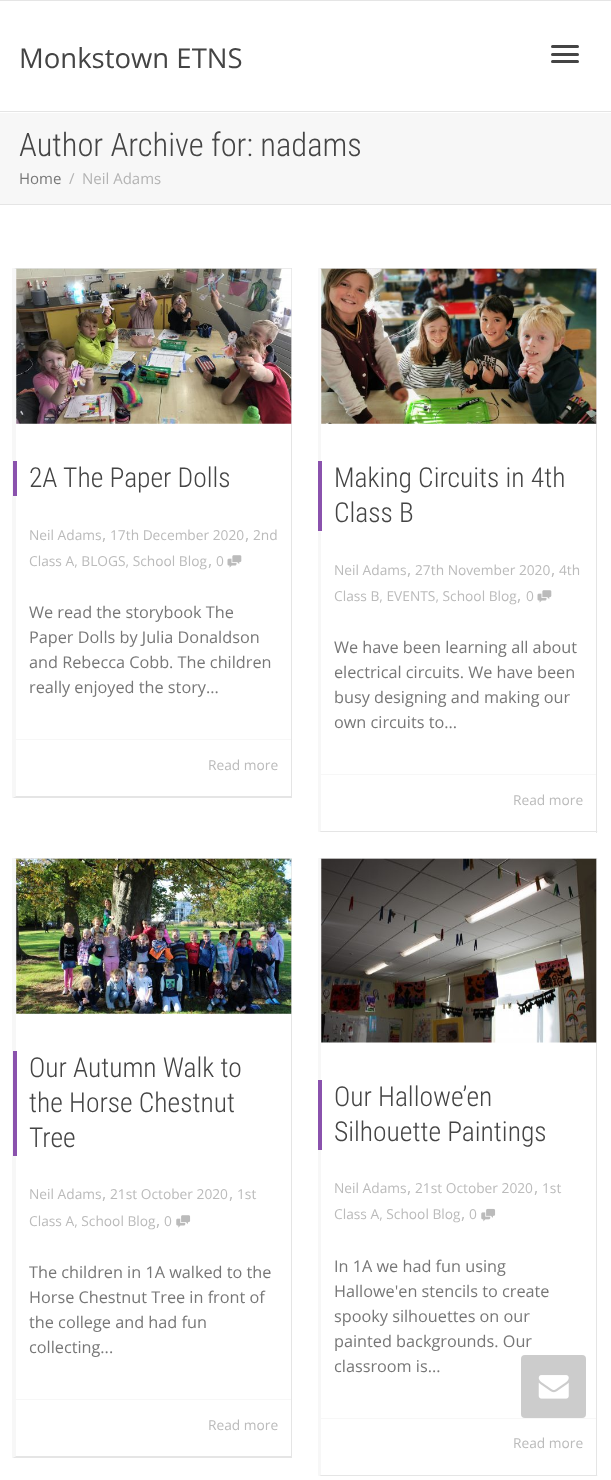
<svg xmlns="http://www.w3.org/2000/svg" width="611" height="1480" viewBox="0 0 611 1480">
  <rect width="100%" height="100%" fill="#ffffff"/>
  <rect x="0" y="0" width="611" height="1" fill="#e5e5e5"/>
  <rect x="0" y="111" width="611" height="1" fill="#e5e5e5"/>
  <text x="19" y="68" font-family="Open Sans" font-size="27.5" fill="#444444">Monkstown ETNS</text>
  <rect x="551" y="45" width="28" height="3" rx="1.5" fill="#444444"/>
  <rect x="551" y="53" width="28" height="3" rx="1.5" fill="#444444"/>
  <rect x="551" y="60" width="28" height="3" rx="1.5" fill="#444444"/>
  <rect x="0" y="113" width="611" height="91" fill="#f7f7f7"/>
  <rect x="0" y="204" width="611" height="1" fill="#e5e5e5"/>
  <text x="19" y="156" font-family="Roboto Condensed" font-size="32.5" font-weight="300" fill="#444444">Author Archive for: nadams</text>
  <text x="19" y="184" font-family="Open Sans" font-size="15" fill="#777777">Home</text>
  <text x="69" y="184" font-family="Open Sans" font-size="15" fill="#b3b3b3">/</text>
  <text x="82" y="184" font-family="Open Sans" font-size="15" fill="#b3b3b3">Neil Adams</text>
  <path d="M12 268H292L291 269H16Z" fill="#e5e5e5"/>
  <rect x="291" y="268" width="1" height="530" fill="#e5e5e5"/>
  <path d="M292 798H12L16 796H291Z" fill="#e5e5e5"/>
  <path d="M12 798V268L16 269V796Z" fill="#f7f7f7"/>
  <image x="16" y="268" width="276" height="156" href="img1.png"/>
  <rect x="13" y="461" width="4" height="35" fill="#8a52ad"/>
  <text x="29" y="487" font-family="Roboto Condensed" font-size="27.5" font-weight="300" fill="#444444">2A The Paper Dolls</text>
  <text x="29" y="540" font-family="Open Sans" font-size="13.75" fill="#bbbbbb">Neil Adams</text>
  <text x="102" y="540" font-family="Open Sans" font-size="16.25" fill="#bbbbbb">,</text>
  <text x="110" y="540" font-family="Open Sans" font-size="13.75" fill="#bbbbbb">17th December 2020</text>
  <text x="245" y="540" font-family="Open Sans" font-size="16.25" fill="#bbbbbb">,</text>
  <text x="253" y="540" font-family="Open Sans" font-size="13.75" fill="#bbbbbb">2nd</text>
  <text x="29" y="566" font-family="Open Sans" font-size="13.75" fill="#bbbbbb">Class A, BLOGS, School Blog</text>
  <text x="208" y="566" font-family="Open Sans" font-size="16.25" fill="#bbbbbb">,</text>
  <text x="216" y="566" font-family="Open Sans" font-size="13.75" fill="#bbbbbb">0</text>
  <image x="227" y="555" width="15" height="13" href="img2.png"/>
  <text x="29" y="618" font-family="Open Sans" font-size="16.25" fill="#777777">We read the storybook The</text>
  <text x="29" y="643" font-family="Open Sans" font-size="16.25" fill="#777777">Paper Dolls by Julia Donaldson</text>
  <text x="29" y="668" font-family="Open Sans" font-size="16.25" fill="#777777">and Rebecca Cobb. The children</text>
  <text x="29" y="693" font-family="Open Sans" font-size="16.25" fill="#777777">really enjoyed the story...</text>
  <rect x="16" y="739" width="275" height="1" fill="#f7f7f7"/>
  <text x="208" y="770" font-family="Open Sans" font-size="13.75" fill="#bbbbbb">Read more</text>
  <path d="M318 268H598L596 269H321Z" fill="#e5e5e5"/>
  <rect x="596" y="268" width="1" height="565" fill="#e5e5e5"/>
  <path d="M598 832H318L321 831H596Z" fill="#e5e5e5"/>
  <path d="M318 832V268L321 269V831Z" fill="#f7f7f7"/>
  <image x="321" y="268" width="276" height="156" href="img3.png"/>
  <rect x="318" y="461" width="4" height="70" fill="#8a52ad"/>
  <text x="334" y="487" font-family="Roboto Condensed" font-size="27.5" font-weight="300" fill="#444444">Making Circuits in 4th</text>
  <text x="334" y="522" font-family="Roboto Condensed" font-size="27.5" font-weight="300" fill="#444444">Class B</text>
  <text x="334" y="575" font-family="Open Sans" font-size="13.75" fill="#bbbbbb">Neil Adams</text>
  <text x="407" y="575" font-family="Open Sans" font-size="16.25" fill="#bbbbbb">,</text>
  <text x="415" y="575" font-family="Open Sans" font-size="13.75" fill="#bbbbbb">27th November 2020</text>
  <text x="551" y="575" font-family="Open Sans" font-size="16.25" fill="#bbbbbb">,</text>
  <text x="559" y="575" font-family="Open Sans" font-size="13.75" fill="#bbbbbb">4th</text>
  <text x="334" y="601" font-family="Open Sans" font-size="13.75" fill="#bbbbbb">Class B, EVENTS, School Blog</text>
  <text x="517" y="601" font-family="Open Sans" font-size="16.25" fill="#bbbbbb">,</text>
  <text x="526" y="601" font-family="Open Sans" font-size="13.75" fill="#bbbbbb">0</text>
  <image x="537" y="590" width="15" height="13" href="img2.png"/>
  <text x="334" y="653" font-family="Open Sans" font-size="16.25" fill="#777777">We have been learning all about</text>
  <text x="334" y="678" font-family="Open Sans" font-size="16.25" fill="#777777">electrical circuits. We have been</text>
  <text x="334" y="703" font-family="Open Sans" font-size="16.25" fill="#777777">busy designing and making our</text>
  <text x="334" y="728" font-family="Open Sans" font-size="16.25" fill="#777777">own circuits to...</text>
  <rect x="321" y="774" width="275" height="1" fill="#f7f7f7"/>
  <text x="513" y="805" font-family="Open Sans" font-size="13.75" fill="#bbbbbb">Read more</text>
  <path d="M12 858H292L291 859H16Z" fill="#e5e5e5"/>
  <rect x="291" y="858" width="1" height="600" fill="#e5e5e5"/>
  <path d="M292 1458H12L16 1456H291Z" fill="#e5e5e5"/>
  <path d="M12 1458V858L16 859V1456Z" fill="#f7f7f7"/>
  <image x="16" y="858" width="276" height="156" href="img4.png"/>
  <rect x="13" y="1051" width="4" height="105" fill="#8a52ad"/>
  <text x="29" y="1077" font-family="Roboto Condensed" font-size="27.5" font-weight="300" fill="#444444">Our Autumn Walk to</text>
  <text x="29" y="1112" font-family="Roboto Condensed" font-size="27.5" font-weight="300" fill="#444444">the Horse Chestnut</text>
  <text x="29" y="1147" font-family="Roboto Condensed" font-size="27.5" font-weight="300" fill="#444444">Tree</text>
  <text x="29" y="1199" font-family="Open Sans" font-size="13.75" fill="#bbbbbb">Neil Adams</text>
  <text x="102" y="1199" font-family="Open Sans" font-size="16.25" fill="#bbbbbb">,</text>
  <text x="110" y="1199" font-family="Open Sans" font-size="13.75" fill="#bbbbbb">21st October 2020</text>
  <text x="229" y="1199" font-family="Open Sans" font-size="16.25" fill="#bbbbbb">,</text>
  <text x="237" y="1199" font-family="Open Sans" font-size="13.75" fill="#bbbbbb">1st</text>
  <text x="29" y="1226" font-family="Open Sans" font-size="13.75" fill="#bbbbbb">Class A, School Blog</text>
  <text x="156" y="1226" font-family="Open Sans" font-size="16.25" fill="#bbbbbb">,</text>
  <text x="164" y="1226" font-family="Open Sans" font-size="13.75" fill="#bbbbbb">0</text>
  <image x="176" y="1215" width="15" height="13" href="img5.png"/>
  <text x="29" y="1278" font-family="Open Sans" font-size="16.25" fill="#777777">The children in 1A walked to the</text>
  <text x="29" y="1303" font-family="Open Sans" font-size="16.25" fill="#777777">Horse Chestnut Tree in front of</text>
  <text x="29" y="1328" font-family="Open Sans" font-size="16.25" fill="#777777">the college and had fun</text>
  <text x="29" y="1353" font-family="Open Sans" font-size="16.25" fill="#777777">collecting...</text>
  <rect x="16" y="1399" width="275" height="1" fill="#f7f7f7"/>
  <text x="208" y="1430" font-family="Open Sans" font-size="13.75" fill="#bbbbbb">Read more</text>
  <path d="M318 858H598L596 859H321Z" fill="#e5e5e5"/>
  <rect x="596" y="858" width="1" height="618" fill="#e5e5e5"/>
  <path d="M598 1476H318L321 1475H596Z" fill="#e5e5e5"/>
  <path d="M318 1476V858L321 859V1475Z" fill="#f7f7f7"/>
  <image x="321" y="858" width="276" height="185" href="img6.png"/>
  <rect x="318" y="1080" width="4" height="70" fill="#8a52ad"/>
  <text x="334" y="1106" font-family="Roboto Condensed" font-size="27.5" font-weight="300" fill="#444444">Our Hallowe’en</text>
  <text x="334" y="1141" font-family="Roboto Condensed" font-size="27.5" font-weight="300" fill="#444444">Silhouette Paintings</text>
  <text x="334" y="1193" font-family="Open Sans" font-size="13.75" fill="#bbbbbb">Neil Adams</text>
  <text x="407" y="1193" font-family="Open Sans" font-size="16.25" fill="#bbbbbb">,</text>
  <text x="415" y="1193" font-family="Open Sans" font-size="13.75" fill="#bbbbbb">21st October 2020</text>
  <text x="534" y="1193" font-family="Open Sans" font-size="16.25" fill="#bbbbbb">,</text>
  <text x="542" y="1193" font-family="Open Sans" font-size="13.75" fill="#bbbbbb">1st</text>
  <text x="334" y="1219" font-family="Open Sans" font-size="13.75" fill="#bbbbbb">Class A, School Blog</text>
  <text x="461" y="1219" font-family="Open Sans" font-size="16.25" fill="#bbbbbb">,</text>
  <text x="469" y="1219" font-family="Open Sans" font-size="13.75" fill="#bbbbbb">0</text>
  <image x="481" y="1208" width="15" height="14" href="img7.png"/>
  <text x="334" y="1272" font-family="Open Sans" font-size="16.25" fill="#777777">In 1A we had fun using</text>
  <text x="334" y="1297" font-family="Open Sans" font-size="16.25" fill="#777777">Hallowe'en stencils to create</text>
  <text x="334" y="1322" font-family="Open Sans" font-size="16.25" fill="#777777">spooky silhouettes on our</text>
  <text x="334" y="1347" font-family="Open Sans" font-size="16.25" fill="#777777">painted backgrounds. Our</text>
  <text x="334" y="1372" font-family="Open Sans" font-size="16.25" fill="#777777">classroom is...</text>
  <rect x="321" y="1418" width="275" height="1" fill="#f7f7f7"/>
  <text x="513" y="1448" font-family="Open Sans" font-size="13.75" fill="#bbbbbb">Read more</text>
  <rect x="521" y="1355" width="65" height="63" rx="4" fill="#cccccc"/>
  <image x="538" y="1375" width="31" height="24" href="img8.png"/>
</svg>
